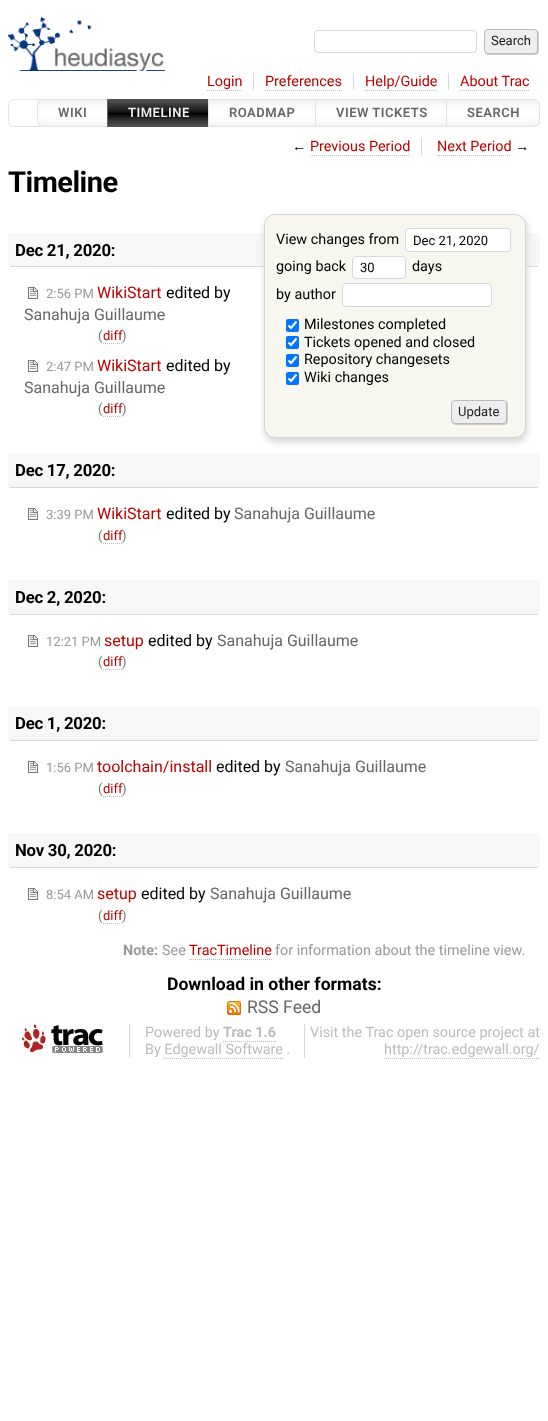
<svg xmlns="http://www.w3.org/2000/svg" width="548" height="1421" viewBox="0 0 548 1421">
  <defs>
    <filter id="blur1" x="-50%" y="-200%" width="200%" height="500%"><feGaussianBlur stdDeviation="0.5"/></filter>
    <clipPath id="clip1"><path d="M43 99H108V127H43C39.5 127 37 124.5 37 121V105C37 101.5 39.5 99 43 99Z"/></clipPath>
    <linearGradient id="g1" gradientUnits="userSpaceOnUse" x1="73" y1="100" x2="73" y2="126"><stop offset="0" stop-color="#f2f2f2"/><stop offset="0.25" stop-color="#fafafa"/><stop offset="0.49" stop-color="#fefefe"/><stop offset="0.51" stop-color="#ffffff"/><stop offset="0.85" stop-color="#fafafa"/><stop offset="1" stop-color="#f2f2f2"/></linearGradient>
    <linearGradient id="g2" gradientUnits="userSpaceOnUse" x1="159" y1="99" x2="159" y2="127"><stop offset="0" stop-color="#555555"/><stop offset="0.25" stop-color="#333333"/><stop offset="0.49" stop-color="#111111"/><stop offset="0.51" stop-color="#000000"/><stop offset="0.75" stop-color="#333333"/><stop offset="1" stop-color="#555555"/></linearGradient>
    <linearGradient id="g3" gradientUnits="userSpaceOnUse" x1="262" y1="100" x2="262" y2="126"><stop offset="0" stop-color="#f2f2f2"/><stop offset="0.25" stop-color="#fafafa"/><stop offset="0.49" stop-color="#fefefe"/><stop offset="0.51" stop-color="#ffffff"/><stop offset="0.85" stop-color="#fafafa"/><stop offset="1" stop-color="#f2f2f2"/></linearGradient>
    <linearGradient id="g4" gradientUnits="userSpaceOnUse" x1="381" y1="100" x2="381" y2="126"><stop offset="0" stop-color="#f2f2f2"/><stop offset="0.25" stop-color="#fafafa"/><stop offset="0.49" stop-color="#fefefe"/><stop offset="0.51" stop-color="#ffffff"/><stop offset="0.85" stop-color="#fafafa"/><stop offset="1" stop-color="#f2f2f2"/></linearGradient>
    <clipPath id="clip2"><path d="M446 99H534C537.5 99 540 101.5 540 105V121C540 124.5 537.5 127 534 127H446Z"/></clipPath>
    <linearGradient id="g5" gradientUnits="userSpaceOnUse" x1="493" y1="100" x2="493" y2="126"><stop offset="0" stop-color="#f2f2f2"/><stop offset="0.25" stop-color="#fafafa"/><stop offset="0.49" stop-color="#fefefe"/><stop offset="0.51" stop-color="#ffffff"/><stop offset="0.85" stop-color="#fafafa"/><stop offset="1" stop-color="#f2f2f2"/></linearGradient>
    <filter id="blur2" x="-50%" y="-200%" width="200%" height="500%"><feGaussianBlur stdDeviation="3.5"/></filter>
  </defs>
  <rect width="100%" height="100%" fill="#ffffff"/>
  <image x="8" y="17" width="157" height="54" href="img1.png"/>
  <rect x="314.5" y="30.5" width="162" height="22" rx="3.5" fill="none" stroke="#d7d7d7"/>
  <rect x="485" y="30" width="54" height="25" rx="4" fill="#cccccc" filter="url(#blur1)"/>
  <rect x="484.5" y="29.5" width="53" height="24" rx="3.5" fill="#eeeeee" stroke="#bbbbbb"/>
  <text x="491" y="45" font-family="Roboto" font-size="13" fill="#222222">Search</text>
  <rect x="253" y="73" width="1" height="17" fill="#d7d7d7"/>
  <text x="207" y="86" font-family="Roboto" font-size="14.4" fill="#bb0000">Login</text>
  <path d="M207 90.5H243" fill="none" stroke="#bbbbbb" stroke-dasharray="1 1"/>
  <rect x="353" y="73" width="1" height="17" fill="#d7d7d7"/>
  <text x="265" y="86" font-family="Roboto" font-size="14.4" fill="#bb0000">Preferences</text>
  <path d="M265 90.5H342" fill="none" stroke="#bbbbbb" stroke-dasharray="1 1"/>
  <rect x="448" y="73" width="1" height="17" fill="#d7d7d7"/>
  <text x="365" y="86" font-family="Roboto" font-size="14.4" fill="#bb0000">Help/Guide</text>
  <path d="M365 90.5H437" fill="none" stroke="#bbbbbb" stroke-dasharray="1 1"/>
  <text x="460" y="86" font-family="Roboto" font-size="14.4" fill="#bb0000">About Trac</text>
  <path d="M460 90.5H529" fill="none" stroke="#bbbbbb" stroke-dasharray="1 1"/>
  <rect x="8.5" y="99.5" width="531" height="27" rx="5.5" fill="none" stroke="#e4e4e4"/>
  <g clip-path="url(#clip1)">
    <rect x="37" y="100" width="70" height="26" fill="url(#g1)"/>
  </g>
  <path d="M43 99.5H107.5V126.5H43C40 126.5 37.5 124 37.5 121V105C37.5 102 40 99.5 43 99.5Z" fill="none" stroke="#e4e4e4"/>
  <text x="58" y="117" font-family="Roboto" font-size="13" font-weight="600" letter-spacing="0.5" fill="#666666">WIKI</text>
  <rect x="107.5" y="99.5" width="102" height="27" fill="none" stroke="#666666"/>
  <rect x="108" y="99" width="100" height="28" fill="url(#g2)"/>
  <text x="128" y="117" font-family="Roboto" font-size="13" font-weight="600" letter-spacing="0.5" fill="#eeeeee">TIMELINE</text>
  <rect x="209" y="100" width="106" height="26" fill="url(#g3)"/>
  <rect x="208.5" y="99.5" width="107" height="27" fill="none" stroke="#e4e4e4"/>
  <text x="229" y="117" font-family="Roboto" font-size="13" font-weight="600" letter-spacing="0.5" fill="#666666">ROADMAP</text>
  <rect x="316" y="100" width="130" height="26" fill="url(#g4)"/>
  <rect x="315.5" y="99.5" width="131" height="27" fill="none" stroke="#e4e4e4"/>
  <text x="336" y="117" font-family="Roboto" font-size="13" font-weight="600" letter-spacing="0.5" fill="#666666">VIEW TICKETS</text>
  <g clip-path="url(#clip2)">
    <rect x="447" y="100" width="93" height="26" fill="url(#g5)"/>
  </g>
  <path d="M446.5 99.5H534C537 99.5 539.5 102 539.5 105V121C539.5 124 537 126.5 534 126.5H446.5Z" fill="none" stroke="#e4e4e4"/>
  <text x="467" y="117" font-family="Roboto" font-size="13" font-weight="600" letter-spacing="0.5" fill="#666666">SEARCH</text>
  <rect x="421" y="138" width="1" height="17" fill="#d7d7d7"/>
  <text x="292" y="151" font-family="Liberation Sans" font-size="14.4" fill="#000000">←</text>
  <text x="310" y="151" font-family="Roboto" font-size="14.4" fill="#bb0000">Previous Period</text>
  <path d="M310 155.5H410" fill="none" stroke="#bbbbbb" stroke-dasharray="1 1"/>
  <text x="437" y="151" font-family="Roboto" font-size="14.4" fill="#bb0000">Next Period</text>
  <path d="M437 155.5H511" fill="none" stroke="#bbbbbb" stroke-dasharray="1 1"/>
  <text x="515" y="151" font-family="Liberation Sans" font-size="14.4" fill="#000000">→</text>
  <text x="8" y="192" font-family="Roboto" font-size="29" font-weight="bold" letter-spacing="-0.5" fill="#000000">Timeline</text>
  <rect x="8" y="233" width="532" height="34" rx="3" fill="#f7f7f7"/>
  <rect x="10" y="266" width="528" height="1" fill="#d7d7d7"/>
  <text x="15" y="256" font-family="Roboto" font-size="16.75" font-weight="bold" letter-spacing="-0.25" fill="#000000">Dec 21, 2020:</text>
  <rect x="8" y="453" width="532" height="35" rx="3" fill="#f7f7f7"/>
  <rect x="265" y="218" width="262" height="224" rx="11" fill="#d4d4d4" filter="url(#blur2)"/>
  <rect x="264.5" y="214.5" width="261" height="223" rx="10.5" fill="#f7f7f0" stroke="#d4d4d4"/>
  <text x="276" y="244" font-family="Roboto" font-size="14.4" fill="#000000">View changes from</text>
  <rect x="405.5" y="228.5" width="105" height="23" rx="3.5" fill="#ffffff" stroke="#d7d7d7"/>
  <text x="413" y="245" font-family="Roboto" font-size="13" fill="#000000">Dec 21, 2020</text>
  <text x="276" y="271" font-family="Roboto" font-size="14.4" fill="#000000">going back</text>
  <rect x="352.5" y="256.5" width="53" height="22" rx="3.5" fill="#ffffff" stroke="#d7d7d7"/>
  <text x="360" y="272" font-family="Roboto" font-size="13" fill="#000000">30</text>
  <text x="412" y="271" font-family="Roboto" font-size="14.4" fill="#000000">days</text>
  <text x="276" y="299" font-family="Roboto" font-size="14.4" fill="#000000">by author</text>
  <rect x="342.5" y="283.5" width="149" height="23" rx="3.5" fill="#ffffff" stroke="#d7d7d7"/>
  <rect x="286" y="319" width="13" height="13" rx="2" fill="#0075ff"/>
  <path d="M288.5 325.5L291 328L296.5 321.5" fill="none" stroke="#ffffff" stroke-width="2.1"/>
  <text x="304" y="329" font-family="Roboto" font-size="14.4" fill="#000000">Milestones completed</text>
  <rect x="286" y="336" width="13" height="13" rx="2" fill="#0075ff"/>
  <path d="M288.5 342.5L291 345L296.5 338.5" fill="none" stroke="#ffffff" stroke-width="2.1"/>
  <text x="304" y="347" font-family="Roboto" font-size="14.4" fill="#000000">Tickets opened and closed</text>
  <rect x="286" y="354" width="13" height="13" rx="2" fill="#0075ff"/>
  <path d="M288.5 360.5L291 363L296.5 356.5" fill="none" stroke="#ffffff" stroke-width="2.1"/>
  <text x="304" y="364" font-family="Roboto" font-size="14.4" fill="#000000">Repository changesets</text>
  <rect x="286" y="372" width="13" height="13" rx="2" fill="#0075ff"/>
  <path d="M288.5 378.5L291 381L296.5 374.5" fill="none" stroke="#ffffff" stroke-width="2.1"/>
  <text x="304" y="382" font-family="Roboto" font-size="14.4" fill="#000000">Wiki changes</text>
  <rect x="452" y="401" width="56" height="24" rx="4" fill="#cccccc" filter="url(#blur1)"/>
  <rect x="451.5" y="400.5" width="55" height="23" rx="3.5" fill="#eeeeee" stroke="#bbbbbb"/>
  <text x="458" y="416" font-family="Roboto" font-size="13" fill="#222222">Update</text>
  <image x="28" y="287" width="10" height="12" href="img2.png"/>
  <text x="46" y="298" font-family="Roboto" font-size="13" fill="#999999">2:56 PM</text>
  <text x="97" y="298" font-family="Roboto" font-size="16" fill="#bb0000">WikiStart</text>
  <text x="166" y="298" font-family="Roboto" font-size="16" fill="#000000">edited by</text>
  <text x="24" y="320" font-family="Roboto" font-size="16" fill="#666666">Sanahuja Guillaume</text>
  <text x="98" y="340" font-family="Roboto" font-size="13" fill="#777766">(</text>
  <text x="103" y="340" font-family="Roboto" font-size="13" fill="#bb0000">diff</text>
  <path d="M103 343.5H122" fill="none" stroke="#bbbbbb" stroke-dasharray="1 1"/>
  <text x="122" y="340" font-family="Roboto" font-size="13" fill="#777766">)</text>
  <image x="28" y="360" width="10" height="12" href="img2.png"/>
  <text x="46" y="371" font-family="Roboto" font-size="13" fill="#999999">2:47 PM</text>
  <text x="97" y="371" font-family="Roboto" font-size="16" fill="#bb0000">WikiStart</text>
  <text x="166" y="371" font-family="Roboto" font-size="16" fill="#000000">edited by</text>
  <text x="24" y="393" font-family="Roboto" font-size="16" fill="#666666">Sanahuja Guillaume</text>
  <text x="98" y="413" font-family="Roboto" font-size="13" fill="#777766">(</text>
  <text x="103" y="413" font-family="Roboto" font-size="13" fill="#bb0000">diff</text>
  <path d="M103 416.5H122" fill="none" stroke="#bbbbbb" stroke-dasharray="1 1"/>
  <text x="122" y="413" font-family="Roboto" font-size="13" fill="#777766">)</text>
  <rect x="10" y="487" width="528" height="1" fill="#d7d7d7"/>
  <text x="15" y="476" font-family="Roboto" font-size="16.75" font-weight="bold" letter-spacing="-0.25" fill="#000000">Dec 17, 2020:</text>
  <image x="28" y="508" width="10" height="12" href="img2.png"/>
  <text x="46" y="519" font-family="Roboto" font-size="13" fill="#999999">3:39 PM</text>
  <text x="97" y="519" font-family="Roboto" font-size="16" fill="#bb0000">WikiStart</text>
  <text x="166" y="519" font-family="Roboto" font-size="16" fill="#000000">edited by</text>
  <text x="234" y="519" font-family="Roboto" font-size="16" fill="#666666">Sanahuja Guillaume</text>
  <text x="98" y="540" font-family="Roboto" font-size="13" fill="#777766">(</text>
  <text x="103" y="540" font-family="Roboto" font-size="13" fill="#bb0000">diff</text>
  <path d="M103 543.5H122" fill="none" stroke="#bbbbbb" stroke-dasharray="1 1"/>
  <text x="122" y="540" font-family="Roboto" font-size="13" fill="#777766">)</text>
  <rect x="8" y="580" width="532" height="35" rx="3" fill="#f7f7f7"/>
  <rect x="10" y="614" width="528" height="1" fill="#d7d7d7"/>
  <text x="15" y="603" font-family="Roboto" font-size="16.75" font-weight="bold" letter-spacing="-0.25" fill="#000000">Dec 2, 2020:</text>
  <image x="28" y="635" width="10" height="12" href="img2.png"/>
  <text x="46" y="646" font-family="Roboto" font-size="13" fill="#999999">12:21 PM</text>
  <text x="104" y="646" font-family="Roboto" font-size="16" fill="#bb0000">setup</text>
  <text x="148" y="646" font-family="Roboto" font-size="16" fill="#000000">edited by</text>
  <text x="217" y="646" font-family="Roboto" font-size="16" fill="#666666">Sanahuja Guillaume</text>
  <text x="98" y="666" font-family="Roboto" font-size="13" fill="#777766">(</text>
  <text x="103" y="666" font-family="Roboto" font-size="13" fill="#bb0000">diff</text>
  <path d="M103 669.5H122" fill="none" stroke="#bbbbbb" stroke-dasharray="1 1"/>
  <text x="122" y="666" font-family="Roboto" font-size="13" fill="#777766">)</text>
  <rect x="8" y="707" width="532" height="34" rx="3" fill="#f7f7f7"/>
  <rect x="10" y="740" width="528" height="1" fill="#d7d7d7"/>
  <text x="15" y="729" font-family="Roboto" font-size="16.75" font-weight="bold" letter-spacing="-0.25" fill="#000000">Dec 1, 2020:</text>
  <image x="28" y="761" width="10" height="12" href="img2.png"/>
  <text x="46" y="772" font-family="Roboto" font-size="13" fill="#999999">1:56 PM</text>
  <text x="97" y="772" font-family="Roboto" font-size="16" fill="#bb0000">toolchain/install</text>
  <text x="216" y="772" font-family="Roboto" font-size="16" fill="#000000">edited by</text>
  <text x="285" y="772" font-family="Roboto" font-size="16" fill="#666666">Sanahuja Guillaume</text>
  <text x="98" y="793" font-family="Roboto" font-size="13" fill="#777766">(</text>
  <text x="103" y="793" font-family="Roboto" font-size="13" fill="#bb0000">diff</text>
  <path d="M103 796.5H122" fill="none" stroke="#bbbbbb" stroke-dasharray="1 1"/>
  <text x="122" y="793" font-family="Roboto" font-size="13" fill="#777766">)</text>
  <rect x="8" y="833" width="532" height="35" rx="3" fill="#f7f7f7"/>
  <rect x="10" y="867" width="528" height="1" fill="#d7d7d7"/>
  <text x="15" y="856" font-family="Roboto" font-size="16.75" font-weight="bold" letter-spacing="-0.25" fill="#000000">Nov 30, 2020:</text>
  <image x="28" y="888" width="10" height="12" href="img2.png"/>
  <text x="46" y="899" font-family="Roboto" font-size="13" fill="#999999">8:54 AM</text>
  <text x="97" y="899" font-family="Roboto" font-size="16" fill="#bb0000">setup</text>
  <text x="141" y="899" font-family="Roboto" font-size="16" fill="#000000">edited by</text>
  <text x="210" y="899" font-family="Roboto" font-size="16" fill="#666666">Sanahuja Guillaume</text>
  <text x="98" y="920" font-family="Roboto" font-size="13" fill="#777766">(</text>
  <text x="103" y="920" font-family="Roboto" font-size="13" fill="#bb0000">diff</text>
  <path d="M103 923.5H122" fill="none" stroke="#bbbbbb" stroke-dasharray="1 1"/>
  <text x="122" y="920" font-family="Roboto" font-size="13" fill="#777766">)</text>
  <text x="123" y="955" font-family="Roboto" font-size="14.4" font-weight="bold" fill="#999999">Note:</text>
  <text x="162" y="955" font-family="Roboto" font-size="14.4" fill="#999999">See</text>
  <text x="189" y="955" font-family="Roboto" font-size="14.4" fill="#bb0000">TracTimeline</text>
  <path d="M189 959.5H272" fill="none" stroke="#bbbbbb" stroke-dasharray="1 1"/>
  <text x="275" y="955" font-family="Roboto" font-size="14.4" fill="#999999">for information about the timeline view.</text>
  <text x="167" y="990" font-family="Roboto" font-size="17.6" font-weight="bold" fill="#000000">Download in other formats:</text>
  <image x="227" y="1001" width="14" height="14" href="img3.png"/>
  <text x="247" y="1013" font-family="Roboto" font-size="17.6" fill="#666666">RSS Feed</text>
  <image x="22" y="1024" width="81" height="29" href="img4.png"/>
  <rect x="304" y="1024" width="1" height="34" fill="#d7d7d7"/>
  <rect x="129" y="1024" width="1" height="34" fill="#d7d7d7"/>
  <text x="145" y="1037" font-family="Roboto" font-size="14.4" fill="#bbbbbb">Powered by</text>
  <text x="223" y="1037" font-family="Roboto" font-size="14.4" font-weight="bold" fill="#bbbbbb">Trac 1.6</text>
  <path d="M223 1041.5H276" fill="none" stroke="#bbbbbb" stroke-dasharray="1 1"/>
  <text x="145" y="1054" font-family="Roboto" font-size="14.4" fill="#bbbbbb">By Edgewall Software .</text>
  <path d="M164 1058.5H283" fill="none" stroke="#bbbbbb" stroke-dasharray="1 1"/>
  <text x="310" y="1037" font-family="Roboto" font-size="14.4" fill="#bbbbbb">Visit the Trac open source project at</text>
  <text x="384" y="1054" font-family="Roboto" font-size="14.4" fill="#bbbbbb">http://trac.edgewall.org/</text>
  <path d="M384 1058.5H540" fill="none" stroke="#bbbbbb" stroke-dasharray="1 1"/>
</svg>
